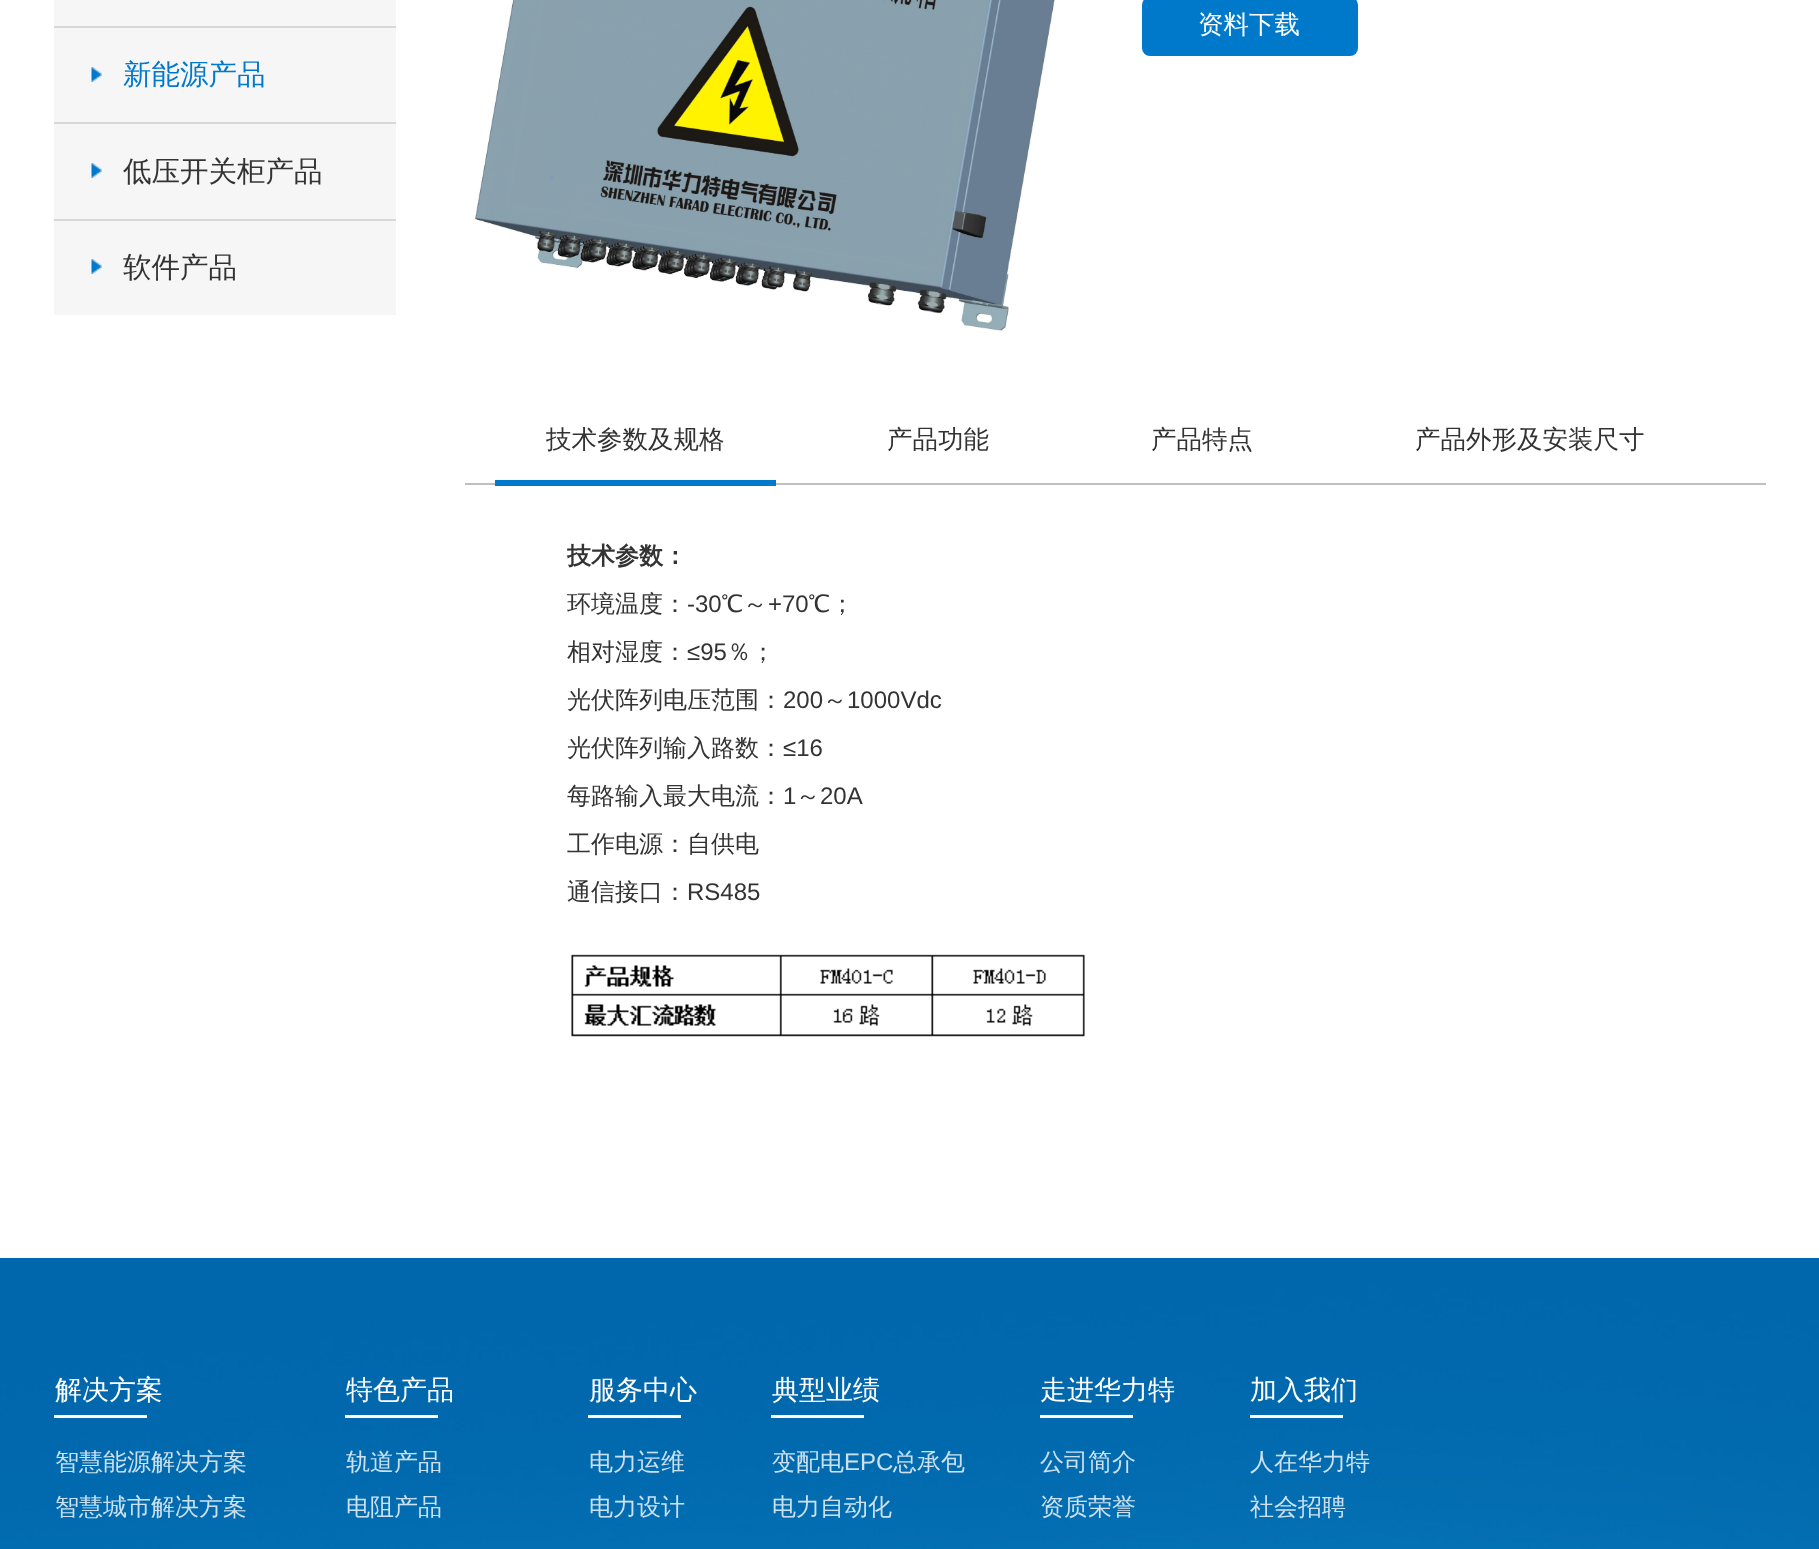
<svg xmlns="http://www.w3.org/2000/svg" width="1819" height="1549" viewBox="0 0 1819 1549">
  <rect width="100%" height="100%" fill="#ffffff"/>
  <rect x="54" y="0" width="342" height="315" fill="#f6f6f6"/>
  <rect x="54" y="26" width="342" height="2" fill="#d7d7d7"/>
  <rect x="54" y="122" width="342" height="2" fill="#d7d7d7"/>
  <image x="91" y="67" width="11" height="15" href="img1.png"/>
  <text x="123" y="84" font-family="WenQuanYi Zen Hei" font-size="28.5" font-weight="500" fill="#0079cb">新能源产品</text>
  <rect x="54" y="219" width="342" height="2" fill="#d7d7d7"/>
  <image x="91" y="163" width="11" height="15" href="img1.png"/>
  <text x="123" y="181" font-family="WenQuanYi Zen Hei" font-size="28.5" font-weight="500" fill="#333333">低压开关柜产品</text>
  <image x="91" y="259" width="11" height="15" href="img1.png"/>
  <text x="123" y="277" font-family="WenQuanYi Zen Hei" font-size="28.5" font-weight="500" fill="#333333">软件产品</text>
  <image x="475" y="0" width="580" height="331" href="img2.png"/>
  <rect x="1142" y="-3" width="216" height="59" rx="8" fill="#0079cb"/>
  <text x="1198" y="33" font-family="WenQuanYi Zen Hei" font-size="25.5" font-weight="500" fill="#ffffff">资料下载</text>
  <rect x="465" y="483" width="1301" height="2" fill="#bfbfbf"/>
  <text x="546" y="448" font-family="WenQuanYi Zen Hei" font-size="25.5" font-weight="500" fill="#333333">技术参数及规格</text>
  <rect x="495" y="480" width="281" height="6" fill="#0079cb"/>
  <text x="887" y="448" font-family="WenQuanYi Zen Hei" font-size="25.5" font-weight="500" fill="#333333">产品功能</text>
  <text x="1151" y="448" font-family="WenQuanYi Zen Hei" font-size="25.5" font-weight="500" fill="#333333">产品特点</text>
  <text x="1415" y="448" font-family="WenQuanYi Zen Hei" font-size="25.5" font-weight="500" fill="#333333">产品外形及安装尺寸</text>
  <text x="567" y="564" font-family="WenQuanYi Zen Hei" font-size="24" font-weight="bold" fill="#333333">技术参数：</text>
  <text x="567" y="612" font-family="WenQuanYi Zen Hei" font-size="24" font-weight="500" fill="#333333">环境温度：</text>
  <text x="687" y="612" font-family="Liberation Sans" font-size="24" fill="#333333">-30</text>
  <text x="721" y="612" font-family="WenQuanYi Zen Hei" font-size="24" font-weight="500" fill="#333333">℃～</text>
  <text x="768" y="612" font-family="Liberation Sans" font-size="24" fill="#333333">+70</text>
  <text x="808" y="612" font-family="WenQuanYi Zen Hei" font-size="24" font-weight="500" fill="#333333">℃；</text>
  <text x="567" y="660" font-family="WenQuanYi Zen Hei" font-size="24" font-weight="500" fill="#333333">相对湿度：</text>
  <text x="687" y="660" font-family="Liberation Sans" font-size="24" fill="#333333">≤95</text>
  <text x="727" y="660" font-family="WenQuanYi Zen Hei" font-size="24" font-weight="500" fill="#333333">％；</text>
  <text x="567" y="708" font-family="WenQuanYi Zen Hei" font-size="24" font-weight="500" fill="#333333">光伏阵列电压范围：</text>
  <text x="783" y="708" font-family="Liberation Sans" font-size="24" fill="#333333">200</text>
  <text x="823" y="708" font-family="WenQuanYi Zen Hei" font-size="24" font-weight="500" fill="#333333">～</text>
  <text x="847" y="708" font-family="Liberation Sans" font-size="24" fill="#333333">1000Vdc</text>
  <text x="567" y="756" font-family="WenQuanYi Zen Hei" font-size="24" font-weight="500" fill="#333333">光伏阵列输入路数：</text>
  <text x="783" y="756" font-family="Liberation Sans" font-size="24" fill="#333333">≤16</text>
  <text x="567" y="804" font-family="WenQuanYi Zen Hei" font-size="24" font-weight="500" fill="#333333">每路输入最大电流：</text>
  <text x="783" y="804" font-family="Liberation Sans" font-size="24" fill="#333333">1</text>
  <text x="796" y="804" font-family="WenQuanYi Zen Hei" font-size="24" font-weight="500" fill="#333333">～</text>
  <text x="820" y="804" font-family="Liberation Sans" font-size="24" fill="#333333">20A</text>
  <text x="567" y="852" font-family="WenQuanYi Zen Hei" font-size="24" font-weight="500" fill="#333333">工作电源：自供电</text>
  <text x="567" y="900" font-family="WenQuanYi Zen Hei" font-size="24" font-weight="500" fill="#333333">通信接口：</text>
  <text x="687" y="900" font-family="Liberation Sans" font-size="24" fill="#333333">RS485</text>
  <image x="571" y="954" width="514" height="83" href="img3.png"/>
  <image x="0" y="1258" width="1819" height="291" href="img4.png"/>
  <text x="55" y="1399" font-family="WenQuanYi Zen Hei" font-size="27" font-weight="500" fill="#ffffff">解决方案</text>
  <rect x="54" y="1415" width="93" height="3" fill="#ffffff"/>
  <text x="55" y="1470" font-family="WenQuanYi Zen Hei" font-size="24" font-weight="500" fill="#cce1ef">智慧能源解决方案</text>
  <text x="55" y="1515" font-family="WenQuanYi Zen Hei" font-size="24" font-weight="500" fill="#cce1ef">智慧城市解决方案</text>
  <text x="346" y="1399" font-family="WenQuanYi Zen Hei" font-size="27" font-weight="500" fill="#ffffff">特色产品</text>
  <rect x="345" y="1415" width="93" height="3" fill="#ffffff"/>
  <text x="346" y="1470" font-family="WenQuanYi Zen Hei" font-size="24" font-weight="500" fill="#cce1ef">轨道产品</text>
  <text x="346" y="1515" font-family="WenQuanYi Zen Hei" font-size="24" font-weight="500" fill="#cce1ef">电阻产品</text>
  <text x="589" y="1399" font-family="WenQuanYi Zen Hei" font-size="27" font-weight="500" fill="#ffffff">服务中心</text>
  <rect x="588" y="1415" width="93" height="3" fill="#ffffff"/>
  <text x="589" y="1470" font-family="WenQuanYi Zen Hei" font-size="24" font-weight="500" fill="#cce1ef">电力运维</text>
  <text x="589" y="1515" font-family="WenQuanYi Zen Hei" font-size="24" font-weight="500" fill="#cce1ef">电力设计</text>
  <text x="772" y="1399" font-family="WenQuanYi Zen Hei" font-size="27" font-weight="500" fill="#ffffff">典型业绩</text>
  <rect x="771" y="1415" width="93" height="3" fill="#ffffff"/>
  <text x="772" y="1470" font-family="WenQuanYi Zen Hei" font-size="24" font-weight="500" fill="#cce1ef">变配电</text>
  <text x="844" y="1470" font-family="Liberation Sans" font-size="24" fill="#cce1ef">EPC</text>
  <text x="893" y="1470" font-family="WenQuanYi Zen Hei" font-size="24" font-weight="500" fill="#cce1ef">总承包</text>
  <text x="772" y="1515" font-family="WenQuanYi Zen Hei" font-size="24" font-weight="500" fill="#cce1ef">电力自动化</text>
  <text x="1040" y="1399" font-family="WenQuanYi Zen Hei" font-size="27" font-weight="500" fill="#ffffff">走进华力特</text>
  <rect x="1040" y="1415" width="93" height="3" fill="#ffffff"/>
  <text x="1040" y="1470" font-family="WenQuanYi Zen Hei" font-size="24" font-weight="500" fill="#cce1ef">公司简介</text>
  <text x="1040" y="1515" font-family="WenQuanYi Zen Hei" font-size="24" font-weight="500" fill="#cce1ef">资质荣誉</text>
  <text x="1250" y="1399" font-family="WenQuanYi Zen Hei" font-size="27" font-weight="500" fill="#ffffff">加入我们</text>
  <rect x="1250" y="1415" width="93" height="3" fill="#ffffff"/>
  <text x="1250" y="1470" font-family="WenQuanYi Zen Hei" font-size="24" font-weight="500" fill="#cce1ef">人在华力特</text>
  <text x="1250" y="1515" font-family="WenQuanYi Zen Hei" font-size="24" font-weight="500" fill="#cce1ef">社会招聘</text>
</svg>
